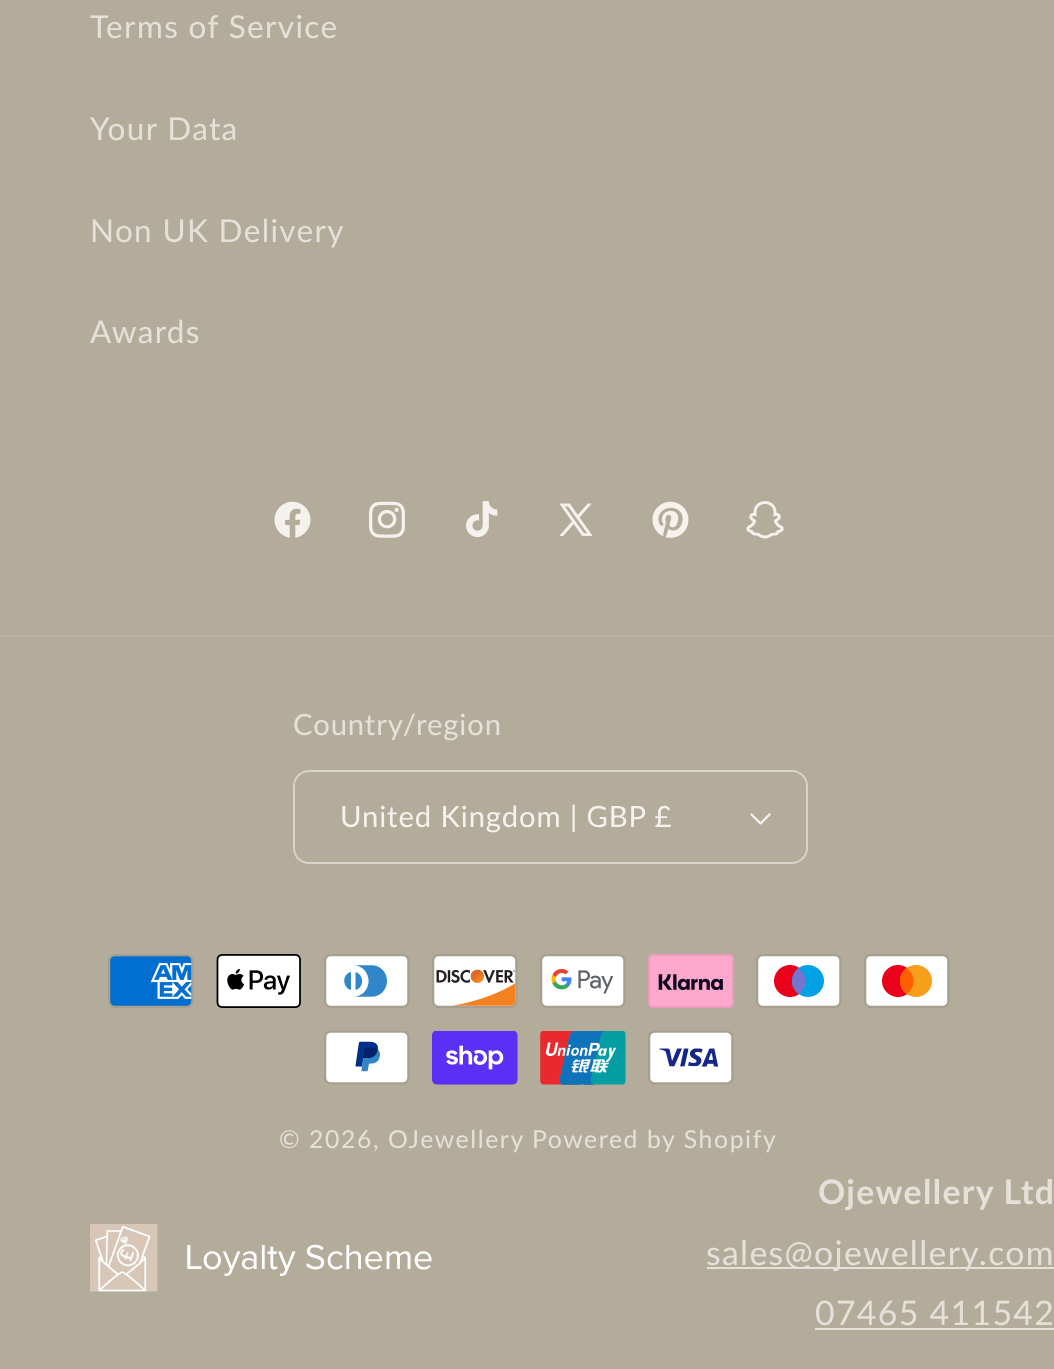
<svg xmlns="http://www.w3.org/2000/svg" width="1054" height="1369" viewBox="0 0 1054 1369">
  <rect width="100%" height="100%" fill="#b3ac9a"/>
  <text x="90" y="38" font-family="Lato" font-size="31.5" letter-spacing="1.35" fill="#e5e1d9">Terms of Service</text>
  <text x="90" y="140" font-family="Lato" font-size="31.5" letter-spacing="1.35" fill="#e5e1d9">Your Data</text>
  <text x="90" y="242" font-family="Lato" font-size="31.5" letter-spacing="1.35" fill="#e5e1d9">Non UK Delivery</text>
  <text x="90" y="343" font-family="Lato" font-size="31.5" letter-spacing="1.35" fill="#e5e1d9">Awards</text>
  <image x="274" y="501" width="37" height="37" href="img1.png"/>
  <image x="369" y="501" width="36" height="37" href="img2.png"/>
  <image x="466" y="501" width="32" height="37" href="img3.png"/>
  <image x="559" y="503" width="34" height="33" href="img4.png"/>
  <image x="652" y="501" width="37" height="37" href="img5.png"/>
  <image x="746" y="501" width="38" height="38" href="img6.png"/>
  <rect x="0" y="635" width="1054" height="2" fill="#b8b2a1"/>
  <text x="293" y="735" font-family="Lato" font-size="29.25" letter-spacing="0.9" fill="#e5e1d9">Country/region</text>
  <image x="750" y="813" width="21" height="12" href="img7.png"/>
  <rect x="294" y="771" width="513" height="92" rx="15" fill="none" stroke="#d7d3c8" stroke-width="2"/>
  <text x="340" y="827" font-family="Lato" font-size="29.25" letter-spacing="0.9" fill="#f5f2ee">United Kingdom | GBP £</text>
  <image x="108" y="954" width="86" height="54" href="img8.png"/>
  <image x="216" y="954" width="85" height="54" href="img9.png"/>
  <image x="324" y="954" width="86" height="54" href="img10.png"/>
  <image x="432" y="954" width="86" height="54" href="img11.png"/>
  <image x="540" y="954" width="86" height="54" href="img12.png"/>
  <image x="648" y="954" width="86" height="54" href="img13.png"/>
  <image x="756" y="954" width="86" height="54" href="img14.png"/>
  <image x="864" y="954" width="86" height="54" href="img15.png"/>
  <image x="324" y="1031" width="86" height="54" href="img16.png"/>
  <image x="432" y="1031" width="86" height="54" href="img17.png"/>
  <image x="540" y="1031" width="86" height="54" href="img18.png"/>
  <image x="648" y="1031" width="86" height="54" href="img19.png"/>
  <text x="279" y="1148" font-family="Lato" font-size="24.75" letter-spacing="1.6" fill="#e5e1d9">© 2026, OJewellery</text>
  <text x="532" y="1148" font-family="Lato" font-size="24.75" letter-spacing="1.6" fill="#e5e1d9">Powered by Shopify</text>
  <image x="90" y="1224" width="342" height="68" href="img20.png"/>
  <text x="818" y="1204" font-family="Lato" font-size="33.75" font-weight="bold" letter-spacing="1.35" fill="#e5e1d9">Ojewellery Ltd</text>
  <rect x="707" y="1267" width="347" height="2" fill="#e5e1d9"/>
  <text x="706" y="1265" font-family="Lato" font-size="33.75" letter-spacing="1.35" fill="#e5e1d9">sales@ojewellery.com</text>
  <text x="815" y="1325" font-family="Lato" font-size="33.75" letter-spacing="1.35" fill="#e5e1d9">07465 411542</text>
  <rect x="815" y="1328" width="239" height="2" fill="#e5e1d9"/>
</svg>
